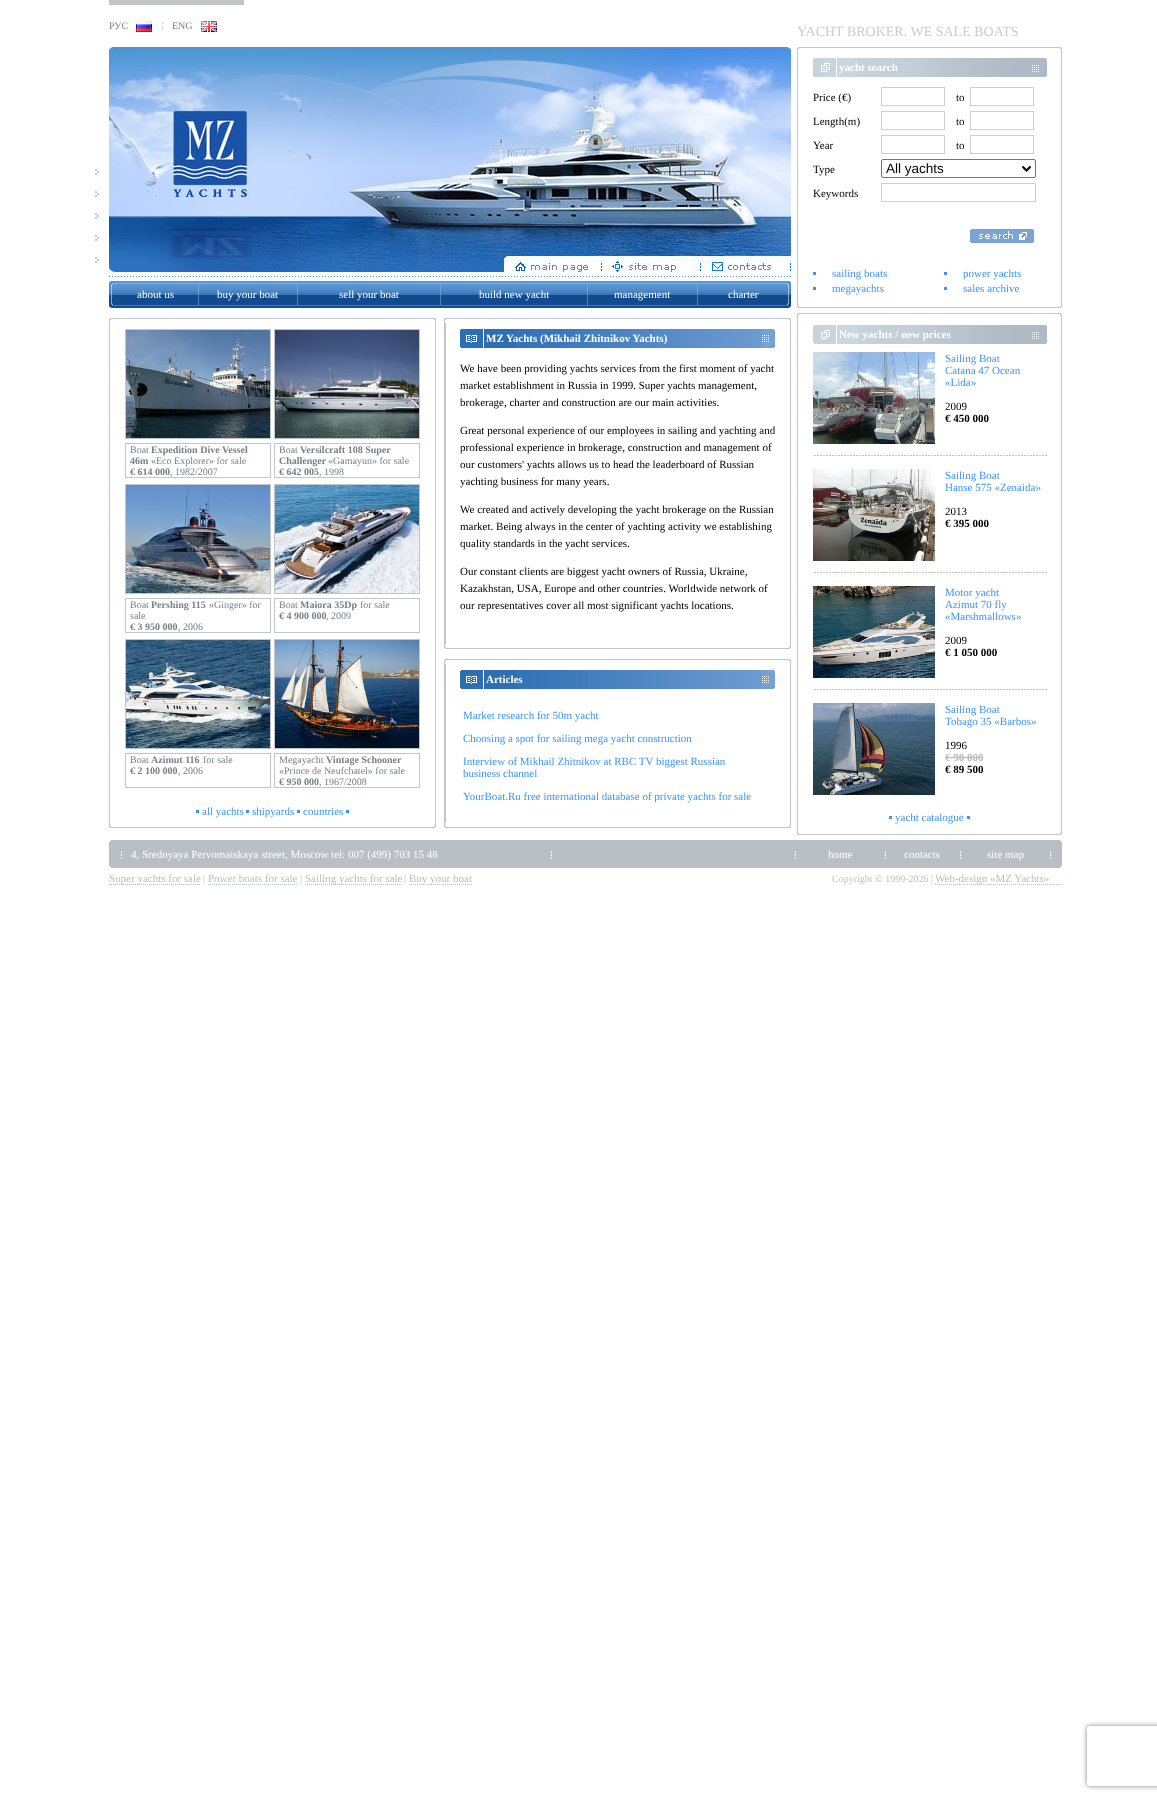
<svg xmlns="http://www.w3.org/2000/svg" width="1157" height="1800" viewBox="0 0 1157 1800">
  <defs>
    <clipPath id="clip1"><path d="M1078 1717H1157V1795H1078ZM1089 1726H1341C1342 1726 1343 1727 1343 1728V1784C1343 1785 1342 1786 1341 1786H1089C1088 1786 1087 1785 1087 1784V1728C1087 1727 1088 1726 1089 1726Z" clip-rule="evenodd"/></clipPath>
    <filter id="blur1" x="-50%" y="-200%" width="200%" height="500%"><feGaussianBlur stdDeviation="2.5"/></filter>
  </defs>
  <rect width="100%" height="100%" fill="#ffffff"/>
  <rect x="109" y="0" width="135" height="5" fill="#c2c6c9"/>
  <text x="109" y="29" font-family="Liberation Serif" font-size="10" fill="#768287">РУС</text>
  <image x="136" y="21" width="16" height="11" href="img1.png"/>
  <image x="162" y="22" width="1" height="8" href="img2.png"/>
  <text x="172" y="29" font-family="Liberation Serif" font-size="10" fill="#768287">ENG</text>
  <image x="201" y="21" width="16" height="11" href="img3.png"/>
  <text x="797" y="36" font-family="Liberation Serif" font-size="14" fill="#cccccc">YACHT BROKER. WE SALE BOATS</text>
  <image x="109" y="276" width="682" height="1" href="img4.png"/>
  <image x="95" y="169" width="4" height="94" href="img5.png"/>
  <image x="109" y="47" width="682" height="225" href="img6.png"/>
  <image x="797" y="47" width="5" height="5" href="img7.png"/>
  <rect x="802" y="47" width="255" height="1" fill="#c2c6c9"/>
  <image x="1057" y="47" width="5" height="5" href="img8.png"/>
  <rect x="797" y="52" width="1" height="251" fill="#c2c6c9"/>
  <image x="813" y="58" width="23" height="19" href="img9.png"/>
  <rect x="837" y="58" width="21" height="19" fill="#cbd7de"/>
  <image x="858" y="58" width="174" height="19" href="img10.png"/>
  <text x="839" y="71" font-family="Liberation Serif" font-size="11" font-weight="bold" fill="#ffffff">yacht search</text>
  <image x="1032" y="58" width="15" height="19" href="img11.png"/>
  <text x="813" y="101" font-family="Liberation Serif" font-size="11" fill="#000000">Price (€)</text>
  <rect x="881.5" y="87.5" width="63" height="18" fill="none" stroke="#ccd0d3"/>
  <text x="956" y="101" font-family="Liberation Serif" font-size="11" fill="#000000">to</text>
  <rect x="970.5" y="87.5" width="63" height="18" fill="none" stroke="#ccd0d3"/>
  <text x="813" y="125" font-family="Liberation Serif" font-size="11" fill="#000000">Length(m)</text>
  <rect x="881.5" y="111.5" width="63" height="18" fill="none" stroke="#ccd0d3"/>
  <text x="956" y="125" font-family="Liberation Serif" font-size="11" fill="#000000">to</text>
  <rect x="970.5" y="111.5" width="63" height="18" fill="none" stroke="#ccd0d3"/>
  <text x="813" y="149" font-family="Liberation Serif" font-size="11" fill="#000000">Year</text>
  <rect x="881.5" y="135.5" width="63" height="18" fill="none" stroke="#ccd0d3"/>
  <text x="956" y="149" font-family="Liberation Serif" font-size="11" fill="#000000">to</text>
  <rect x="970.5" y="135.5" width="63" height="18" fill="none" stroke="#ccd0d3"/>
  <text x="813" y="173" font-family="Liberation Serif" font-size="11" fill="#000000">Type</text>
  <rect x="881.5" y="159.5" width="154" height="18" rx="1.5" fill="none" stroke="#767676"/>
  <path d="M1022.5 166.5L1026.5 170.5L1030.5 166.5" fill="none" stroke="#000000" stroke-width="2"/>
  <text x="886" y="173" font-family="Liberation Sans" font-size="13.5" fill="#000000">All yachts</text>
  <text x="813" y="197" font-family="Liberation Serif" font-size="11" fill="#000000">Keywords</text>
  <rect x="881.5" y="183.5" width="154" height="18" fill="none" stroke="#ccd0d3"/>
  <image x="970" y="229" width="64" height="14" href="img12.png"/>
  <rect x="813" y="272" width="3" height="3" fill="#3d95f3"/>
  <text x="832" y="277" font-family="Liberation Serif" font-size="11" fill="#3d95f3">sailing boats</text>
  <rect x="944" y="272" width="3" height="3" fill="#3d95f3"/>
  <text x="963" y="277" font-family="Liberation Serif" font-size="11" fill="#3d95f3">power yachts</text>
  <rect x="813" y="287" width="3" height="3" fill="#3d95f3"/>
  <text x="832" y="292" font-family="Liberation Serif" font-size="11" fill="#3d95f3">megayachts</text>
  <rect x="944" y="287" width="3" height="3" fill="#3d95f3"/>
  <text x="963" y="292" font-family="Liberation Serif" font-size="11" fill="#3d95f3">sales archive</text>
  <rect x="1061" y="52" width="1" height="251" fill="#c2c6c9"/>
  <image x="797" y="303" width="5" height="5" href="img13.png"/>
  <rect x="802" y="307" width="255" height="1" fill="#c2c6c9"/>
  <image x="1057" y="303" width="5" height="5" href="img14.png"/>
  <image x="109" y="281" width="4" height="27" href="img15.png"/>
  <image x="113" y="281" width="84" height="27" href="img16.png"/>
  <text x="137" y="298" font-family="Liberation Serif" font-size="11" fill="#ffffff">about us</text>
  <image x="197" y="281" width="3" height="27" href="img17.png"/>
  <image x="198" y="284" width="1" height="21" href="img18.png"/>
  <image x="200" y="281" width="96" height="27" href="img19.png"/>
  <text x="217" y="298" font-family="Liberation Serif" font-size="11" fill="#ffffff">buy your boat</text>
  <image x="296" y="281" width="3" height="27" href="img17.png"/>
  <image x="297" y="284" width="1" height="21" href="img18.png"/>
  <image x="299" y="281" width="140" height="27" href="img20.png"/>
  <text x="339" y="298" font-family="Liberation Serif" font-size="11" fill="#ffffff">sell your boat</text>
  <image x="439" y="281" width="3" height="27" href="img17.png"/>
  <image x="440" y="284" width="1" height="21" href="img18.png"/>
  <image x="442" y="281" width="144" height="27" href="img21.png"/>
  <text x="479" y="298" font-family="Liberation Serif" font-size="11" fill="#ffffff">build new yacht</text>
  <image x="586" y="281" width="3" height="27" href="img17.png"/>
  <image x="587" y="284" width="1" height="21" href="img18.png"/>
  <image x="589" y="281" width="107" height="27" href="img22.png"/>
  <text x="614" y="298" font-family="Liberation Serif" font-size="11" fill="#ffffff">management</text>
  <image x="696" y="281" width="3" height="27" href="img17.png"/>
  <image x="697" y="284" width="1" height="21" href="img18.png"/>
  <image x="699" y="281" width="88" height="27" href="img23.png"/>
  <text x="728" y="298" font-family="Liberation Serif" font-size="11" fill="#ffffff">charter</text>
  <image x="787" y="281" width="4" height="27" href="img24.png"/>
  <image x="109" y="318" width="5" height="5" href="img7.png"/>
  <rect x="114" y="318" width="317" height="1" fill="#c2c6c9"/>
  <image x="431" y="318" width="5" height="5" href="img8.png"/>
  <rect x="109" y="323" width="1" height="500" fill="#c2c6c9"/>
  <rect x="125" y="329" width="146" height="110" fill="#c2c6c9"/>
  <image x="126" y="330" width="144" height="108" href="img25.png"/>
  <rect x="274" y="329" width="146" height="110" fill="#c2c6c9"/>
  <image x="275" y="330" width="144" height="108" href="img26.png"/>
  <rect x="125.5" y="443.5" width="145" height="34" fill="none" stroke="#c2c6c9"/>
  <text x="130" y="453" font-family="Liberation Serif" font-size="10" fill="#768287">Boat</text>
  <text x="151" y="453" font-family="Liberation Serif" font-size="10" font-weight="bold" fill="#768287">Expedition Dive Vessel</text>
  <text x="130" y="464" font-family="Liberation Serif" font-size="10" font-weight="bold" fill="#768287">46m</text>
  <text x="151" y="464" font-family="Liberation Serif" font-size="10" fill="#768287">«Eco Explorer» for sale</text>
  <text x="130" y="475" font-family="Liberation Serif" font-size="10" font-weight="bold" fill="#768287">€ 614 000</text>
  <text x="170" y="475" font-family="Liberation Serif" font-size="10" fill="#768287">, 1982/2007</text>
  <rect x="274.5" y="443.5" width="145" height="34" fill="none" stroke="#c2c6c9"/>
  <text x="279" y="453" font-family="Liberation Serif" font-size="10" fill="#768287">Boat</text>
  <text x="300" y="453" font-family="Liberation Serif" font-size="10" font-weight="bold" fill="#768287">Versilcraft 108 Super</text>
  <text x="279" y="464" font-family="Liberation Serif" font-size="10" font-weight="bold" fill="#768287">Challenger</text>
  <text x="328" y="464" font-family="Liberation Serif" font-size="10" fill="#768287">«Gamayun» for sale</text>
  <text x="279" y="475" font-family="Liberation Serif" font-size="10" font-weight="bold" fill="#768287">€ 642 005</text>
  <text x="319" y="475" font-family="Liberation Serif" font-size="10" fill="#768287">, 1998</text>
  <rect x="125" y="484" width="146" height="110" fill="#c2c6c9"/>
  <image x="126" y="485" width="144" height="108" href="img27.png"/>
  <rect x="274" y="484" width="146" height="110" fill="#c2c6c9"/>
  <image x="275" y="485" width="144" height="108" href="img28.png"/>
  <rect x="125.5" y="598.5" width="145" height="34" fill="none" stroke="#c2c6c9"/>
  <text x="130" y="608" font-family="Liberation Serif" font-size="10" fill="#768287">Boat</text>
  <text x="151" y="608" font-family="Liberation Serif" font-size="10" font-weight="bold" fill="#768287">Pershing 115</text>
  <text x="209" y="608" font-family="Liberation Serif" font-size="10" fill="#768287">«Ginger» for</text>
  <text x="130" y="619" font-family="Liberation Serif" font-size="10" fill="#768287">sale</text>
  <text x="130" y="630" font-family="Liberation Serif" font-size="10" font-weight="bold" fill="#768287">€ 3 950 000</text>
  <text x="178" y="630" font-family="Liberation Serif" font-size="10" fill="#768287">, 2006</text>
  <rect x="274.5" y="598.5" width="145" height="34" fill="none" stroke="#c2c6c9"/>
  <text x="279" y="608" font-family="Liberation Serif" font-size="10" fill="#768287">Boat</text>
  <text x="300" y="608" font-family="Liberation Serif" font-size="10" font-weight="bold" fill="#768287">Maiora 35Dp</text>
  <text x="360" y="608" font-family="Liberation Serif" font-size="10" fill="#768287">for sale</text>
  <text x="279" y="619" font-family="Liberation Serif" font-size="10" font-weight="bold" fill="#768287">€ 4 900 000</text>
  <text x="326" y="619" font-family="Liberation Serif" font-size="10" fill="#768287">, 2009</text>
  <rect x="125" y="639" width="146" height="110" fill="#c2c6c9"/>
  <image x="126" y="640" width="144" height="108" href="img29.png"/>
  <rect x="274" y="639" width="146" height="110" fill="#c2c6c9"/>
  <image x="275" y="640" width="144" height="108" href="img30.png"/>
  <rect x="125.5" y="753.5" width="145" height="34" fill="none" stroke="#c2c6c9"/>
  <text x="130" y="763" font-family="Liberation Serif" font-size="10" fill="#768287">Boat</text>
  <text x="151" y="763" font-family="Liberation Serif" font-size="10" font-weight="bold" fill="#768287">Azimut 116</text>
  <text x="203" y="763" font-family="Liberation Serif" font-size="10" fill="#768287">for sale</text>
  <text x="130" y="774" font-family="Liberation Serif" font-size="10" font-weight="bold" fill="#768287">€ 2 100 000</text>
  <text x="178" y="774" font-family="Liberation Serif" font-size="10" fill="#768287">, 2006</text>
  <rect x="274.5" y="753.5" width="145" height="34" fill="none" stroke="#c2c6c9"/>
  <text x="279" y="763" font-family="Liberation Serif" font-size="10" fill="#768287">Megayacht</text>
  <text x="326" y="763" font-family="Liberation Serif" font-size="10" font-weight="bold" fill="#768287">Vintage Schooner</text>
  <text x="279" y="774" font-family="Liberation Serif" font-size="10" fill="#768287">«Prince de Neufchatel» for sale</text>
  <text x="279" y="785" font-family="Liberation Serif" font-size="10" font-weight="bold" fill="#768287">€ 950 000</text>
  <text x="319" y="785" font-family="Liberation Serif" font-size="10" fill="#768287">, 1967/2008</text>
  <rect x="196" y="810" width="3" height="3" fill="#3d95f3"/>
  <text x="202" y="815" font-family="Liberation Serif" font-size="11" fill="#3d95f3">all yachts</text>
  <rect x="246" y="810" width="3" height="3" fill="#3d95f3"/>
  <text x="252" y="815" font-family="Liberation Serif" font-size="11" fill="#3d95f3">shipyards</text>
  <rect x="297" y="810" width="3" height="3" fill="#3d95f3"/>
  <text x="303" y="815" font-family="Liberation Serif" font-size="11" fill="#3d95f3">countries</text>
  <rect x="346" y="810" width="3" height="3" fill="#3d95f3"/>
  <rect x="435" y="323" width="1" height="500" fill="#c2c6c9"/>
  <image x="109" y="823" width="5" height="5" href="img13.png"/>
  <rect x="114" y="827" width="317" height="1" fill="#c2c6c9"/>
  <image x="431" y="823" width="5" height="5" href="img14.png"/>
  <image x="444" y="318" width="5" height="5" href="img7.png"/>
  <rect x="449" y="318" width="337" height="1" fill="#c2c6c9"/>
  <image x="786" y="318" width="5" height="5" href="img8.png"/>
  <rect x="444" y="323" width="2" height="321" fill="#c2c6c9"/>
  <image x="460" y="329" width="23" height="19" href="img31.png"/>
  <rect x="484" y="329" width="31" height="19" fill="#2e6fb4"/>
  <image x="515" y="329" width="247" height="19" href="img32.png"/>
  <text x="486" y="342" font-family="Liberation Serif" font-size="11" font-weight="bold" fill="#ffffff">MZ Yachts (Mikhail Zhitnikov Yachts)</text>
  <image x="762" y="329" width="13" height="19" href="img33.png"/>
  <text x="460" y="372" font-family="Liberation Serif" font-size="11" fill="#000000">We have been providing yachts services from the first moment of yacht</text>
  <text x="460" y="389" font-family="Liberation Serif" font-size="11" fill="#000000">market establishment in Russia in 1999. Super yachts management,</text>
  <text x="460" y="406" font-family="Liberation Serif" font-size="11" fill="#000000">brokerage, charter and construction are our main activities.</text>
  <text x="460" y="434" font-family="Liberation Serif" font-size="11" fill="#000000">Great personal experience of our employees in sailing and yachting and</text>
  <text x="460" y="451" font-family="Liberation Serif" font-size="11" fill="#000000">professional experience in brokerage, construction and management of</text>
  <text x="460" y="468" font-family="Liberation Serif" font-size="11" fill="#000000">our customers' yachts allows us to head the leaderboard of Russian</text>
  <text x="460" y="485" font-family="Liberation Serif" font-size="11" fill="#000000">yachting business for many years.</text>
  <text x="460" y="513" font-family="Liberation Serif" font-size="11" fill="#000000">We created and actively developing the yacht brokerage on the Russian</text>
  <text x="460" y="530" font-family="Liberation Serif" font-size="11" fill="#000000">market. Being always in the center of yachting activity we establishing</text>
  <text x="460" y="547" font-family="Liberation Serif" font-size="11" fill="#000000">quality standards in the yacht services.</text>
  <text x="460" y="575" font-family="Liberation Serif" font-size="11" fill="#000000">Our constant clients are biggest yacht owners of Russia, Ukraine,</text>
  <text x="460" y="592" font-family="Liberation Serif" font-size="11" fill="#000000">Kazakhstan, USA, Europe and other countries. Worldwide network of</text>
  <text x="460" y="609" font-family="Liberation Serif" font-size="11" fill="#000000">our representatives cover all most significant yachts locations.</text>
  <rect x="790" y="323" width="1" height="321" fill="#c2c6c9"/>
  <image x="444" y="644" width="5" height="5" href="img13.png"/>
  <rect x="449" y="648" width="337" height="1" fill="#c2c6c9"/>
  <image x="786" y="644" width="5" height="5" href="img14.png"/>
  <image x="444" y="659" width="5" height="5" href="img7.png"/>
  <rect x="449" y="659" width="337" height="1" fill="#c2c6c9"/>
  <image x="786" y="659" width="5" height="5" href="img8.png"/>
  <rect x="444" y="664" width="2" height="159" fill="#c2c6c9"/>
  <image x="460" y="670" width="23" height="19" href="img31.png"/>
  <rect x="484" y="670" width="31" height="19" fill="#2e6fb4"/>
  <image x="515" y="670" width="247" height="19" href="img32.png"/>
  <text x="486" y="683" font-family="Liberation Serif" font-size="11" font-weight="bold" fill="#ffffff">Articles</text>
  <image x="762" y="670" width="13" height="19" href="img33.png"/>
  <text x="463" y="719" font-family="Liberation Serif" font-size="11" fill="#3d95f3">Market research for 50m yacht</text>
  <text x="463" y="742" font-family="Liberation Serif" font-size="11" fill="#3d95f3">Choosing a spot for sailing mega yacht construction</text>
  <text x="463" y="765" font-family="Liberation Serif" font-size="11" fill="#3d95f3">Interview of Mikhail Zhitnikov at RBC TV biggest Russian</text>
  <text x="463" y="777" font-family="Liberation Serif" font-size="11" fill="#3d95f3">business channel</text>
  <text x="463" y="800" font-family="Liberation Serif" font-size="11" fill="#3d95f3">YourBoat.Ru free international database of private yachts for sale</text>
  <rect x="790" y="664" width="1" height="159" fill="#c2c6c9"/>
  <image x="444" y="823" width="5" height="5" href="img13.png"/>
  <rect x="449" y="827" width="337" height="1" fill="#c2c6c9"/>
  <image x="786" y="823" width="5" height="5" href="img14.png"/>
  <image x="797" y="313" width="5" height="5" href="img7.png"/>
  <rect x="802" y="313" width="255" height="1" fill="#c2c6c9"/>
  <image x="1057" y="313" width="5" height="5" href="img8.png"/>
  <rect x="797" y="318" width="1" height="512" fill="#c2c6c9"/>
  <image x="813" y="325" width="23" height="19" href="img9.png"/>
  <rect x="837" y="325" width="21" height="19" fill="#cbd7de"/>
  <image x="858" y="325" width="174" height="19" href="img10.png"/>
  <text x="839" y="338" font-family="Liberation Serif" font-size="11" font-weight="bold" fill="#ffffff">New yachts / new prices</text>
  <image x="1032" y="325" width="15" height="19" href="img11.png"/>
  <image x="813" y="352" width="122" height="92" href="img34.png"/>
  <text x="945" y="362" font-family="Liberation Serif" font-size="11" fill="#3d95f3">Sailing Boat</text>
  <text x="945" y="374" font-family="Liberation Serif" font-size="11" fill="#3d95f3">Catana 47 Ocean</text>
  <text x="945" y="386" font-family="Liberation Serif" font-size="11" fill="#3d95f3">«Lida»</text>
  <text x="945" y="410" font-family="Liberation Serif" font-size="11" fill="#000000">2009</text>
  <text x="945" y="422" font-family="Liberation Serif" font-size="11" font-weight="bold" fill="#000000">€ 450 000</text>
  <image x="814" y="455" width="233" height="1" href="img35.png"/>
  <image x="813" y="469" width="122" height="92" href="img36.png"/>
  <text x="945" y="479" font-family="Liberation Serif" font-size="11" fill="#3d95f3">Sailing Boat</text>
  <text x="945" y="491" font-family="Liberation Serif" font-size="11" fill="#3d95f3">Hanse 575 «Zenaida»</text>
  <text x="945" y="515" font-family="Liberation Serif" font-size="11" fill="#000000">2013</text>
  <text x="945" y="527" font-family="Liberation Serif" font-size="11" font-weight="bold" fill="#000000">€ 395 000</text>
  <image x="814" y="572" width="233" height="1" href="img35.png"/>
  <image x="813" y="586" width="122" height="92" href="img37.png"/>
  <text x="945" y="596" font-family="Liberation Serif" font-size="11" fill="#3d95f3">Motor yacht</text>
  <text x="945" y="608" font-family="Liberation Serif" font-size="11" fill="#3d95f3">Azimut 70 fly</text>
  <text x="945" y="620" font-family="Liberation Serif" font-size="11" fill="#3d95f3">«Marshmallows»</text>
  <text x="945" y="644" font-family="Liberation Serif" font-size="11" fill="#000000">2009</text>
  <text x="945" y="656" font-family="Liberation Serif" font-size="11" font-weight="bold" fill="#000000">€ 1 050 000</text>
  <image x="814" y="689" width="233" height="1" href="img35.png"/>
  <image x="813" y="703" width="122" height="92" href="img38.png"/>
  <text x="945" y="713" font-family="Liberation Serif" font-size="11" fill="#3d95f3">Sailing Boat</text>
  <text x="945" y="725" font-family="Liberation Serif" font-size="11" fill="#3d95f3">Tobago 35 «Barbos»</text>
  <text x="945" y="749" font-family="Liberation Serif" font-size="11" fill="#000000">1996</text>
  <text x="945" y="761" font-family="Liberation Serif" font-size="11" font-weight="bold" fill="#bbbbbb">€ 90 000</text>
  <rect x="945" y="757" width="38" height="1" fill="#bbbbbb"/>
  <text x="945" y="773" font-family="Liberation Serif" font-size="11" font-weight="bold" fill="#000000">€ 89 500</text>
  <rect x="889" y="816" width="3" height="3" fill="#3d95f3"/>
  <text x="895" y="821" font-family="Liberation Serif" font-size="11" fill="#3d95f3">yacht catalogue</text>
  <rect x="967" y="816" width="3" height="3" fill="#3d95f3"/>
  <rect x="1061" y="318" width="1" height="512" fill="#c2c6c9"/>
  <image x="797" y="830" width="5" height="5" href="img13.png"/>
  <rect x="802" y="834" width="255" height="1" fill="#c2c6c9"/>
  <image x="1057" y="830" width="5" height="5" href="img14.png"/>
  <image x="109" y="841" width="2" height="26" href="img39.png"/>
  <rect x="111" y="840" width="440" height="28" fill="#b9bfc5"/>
  <image x="121" y="851" width="1" height="8" href="img40.png"/>
  <image x="551" y="840" width="1" height="28" href="img41.png"/>
  <rect x="552" y="840" width="508" height="28" fill="#b9bfc5"/>
  <image x="1060" y="841" width="2" height="26" href="img42.png"/>
  <text x="131" y="858" font-family="Liberation Serif" font-size="11" fill="#ffffff">4, Srednyaya Pervomaiskaya street, Moscow tel: 007 (499) 703 15 48</text>
  <image x="795" y="851" width="1" height="8" href="img40.png"/>
  <text x="828" y="858" font-family="Liberation Serif" font-size="11" fill="#ffffff">home</text>
  <image x="885" y="851" width="1" height="8" href="img40.png"/>
  <text x="904" y="858" font-family="Liberation Serif" font-size="11" fill="#ffffff">contacts</text>
  <image x="960" y="851" width="1" height="8" href="img40.png"/>
  <text x="987" y="858" font-family="Liberation Serif" font-size="11" fill="#ffffff">site map</text>
  <image x="1050" y="851" width="1" height="8" href="img40.png"/>
  <path d="M109 884.5H201" fill="none" stroke="#b9bfc5" stroke-dasharray="1 1"/>
  <text x="109" y="882" font-family="Liberation Serif" font-size="11" fill="#b9bfc5">Super yachts for sale</text>
  <text x="203" y="882" font-family="Liberation Serif" font-size="10" fill="#b9bfc5">|</text>
  <text x="208" y="882" font-family="Liberation Serif" font-size="11" fill="#b9bfc5">Power boats for sale</text>
  <path d="M208 884.5H297" fill="none" stroke="#b9bfc5" stroke-dasharray="1 1"/>
  <text x="300" y="882" font-family="Liberation Serif" font-size="10" fill="#b9bfc5">|</text>
  <path d="M305 884.5H402" fill="none" stroke="#b9bfc5" stroke-dasharray="1 1"/>
  <text x="305" y="882" font-family="Liberation Serif" font-size="11" fill="#b9bfc5">Sailing yachts for sale</text>
  <text x="404" y="882" font-family="Liberation Serif" font-size="10" fill="#b9bfc5">|</text>
  <path d="M409 884.5H472" fill="none" stroke="#b9bfc5" stroke-dasharray="1 1"/>
  <text x="409" y="882" font-family="Liberation Serif" font-size="11" fill="#b9bfc5">Buy your boat</text>
  <text x="832" y="882" font-family="Liberation Serif" font-size="10" fill="#b9bfc5">Copyright © 1999-2026 |</text>
  <path d="M935 884.5H1050" fill="none" stroke="#b9bfc5" stroke-dasharray="1 1"/>
  <text x="935" y="882" font-family="Liberation Serif" font-size="11" fill="#b9bfc5">Web-design «MZ Yachts»</text>
  <path d="M1052 884.5H1062" fill="none" stroke="#b9bfc5" stroke-dasharray="1 1"/>
  <g clip-path="url(#clip1)">
    <rect x="1087" y="1726" width="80" height="60" rx="2" fill="#808080" filter="url(#blur1)"/>
  </g>
</svg>
